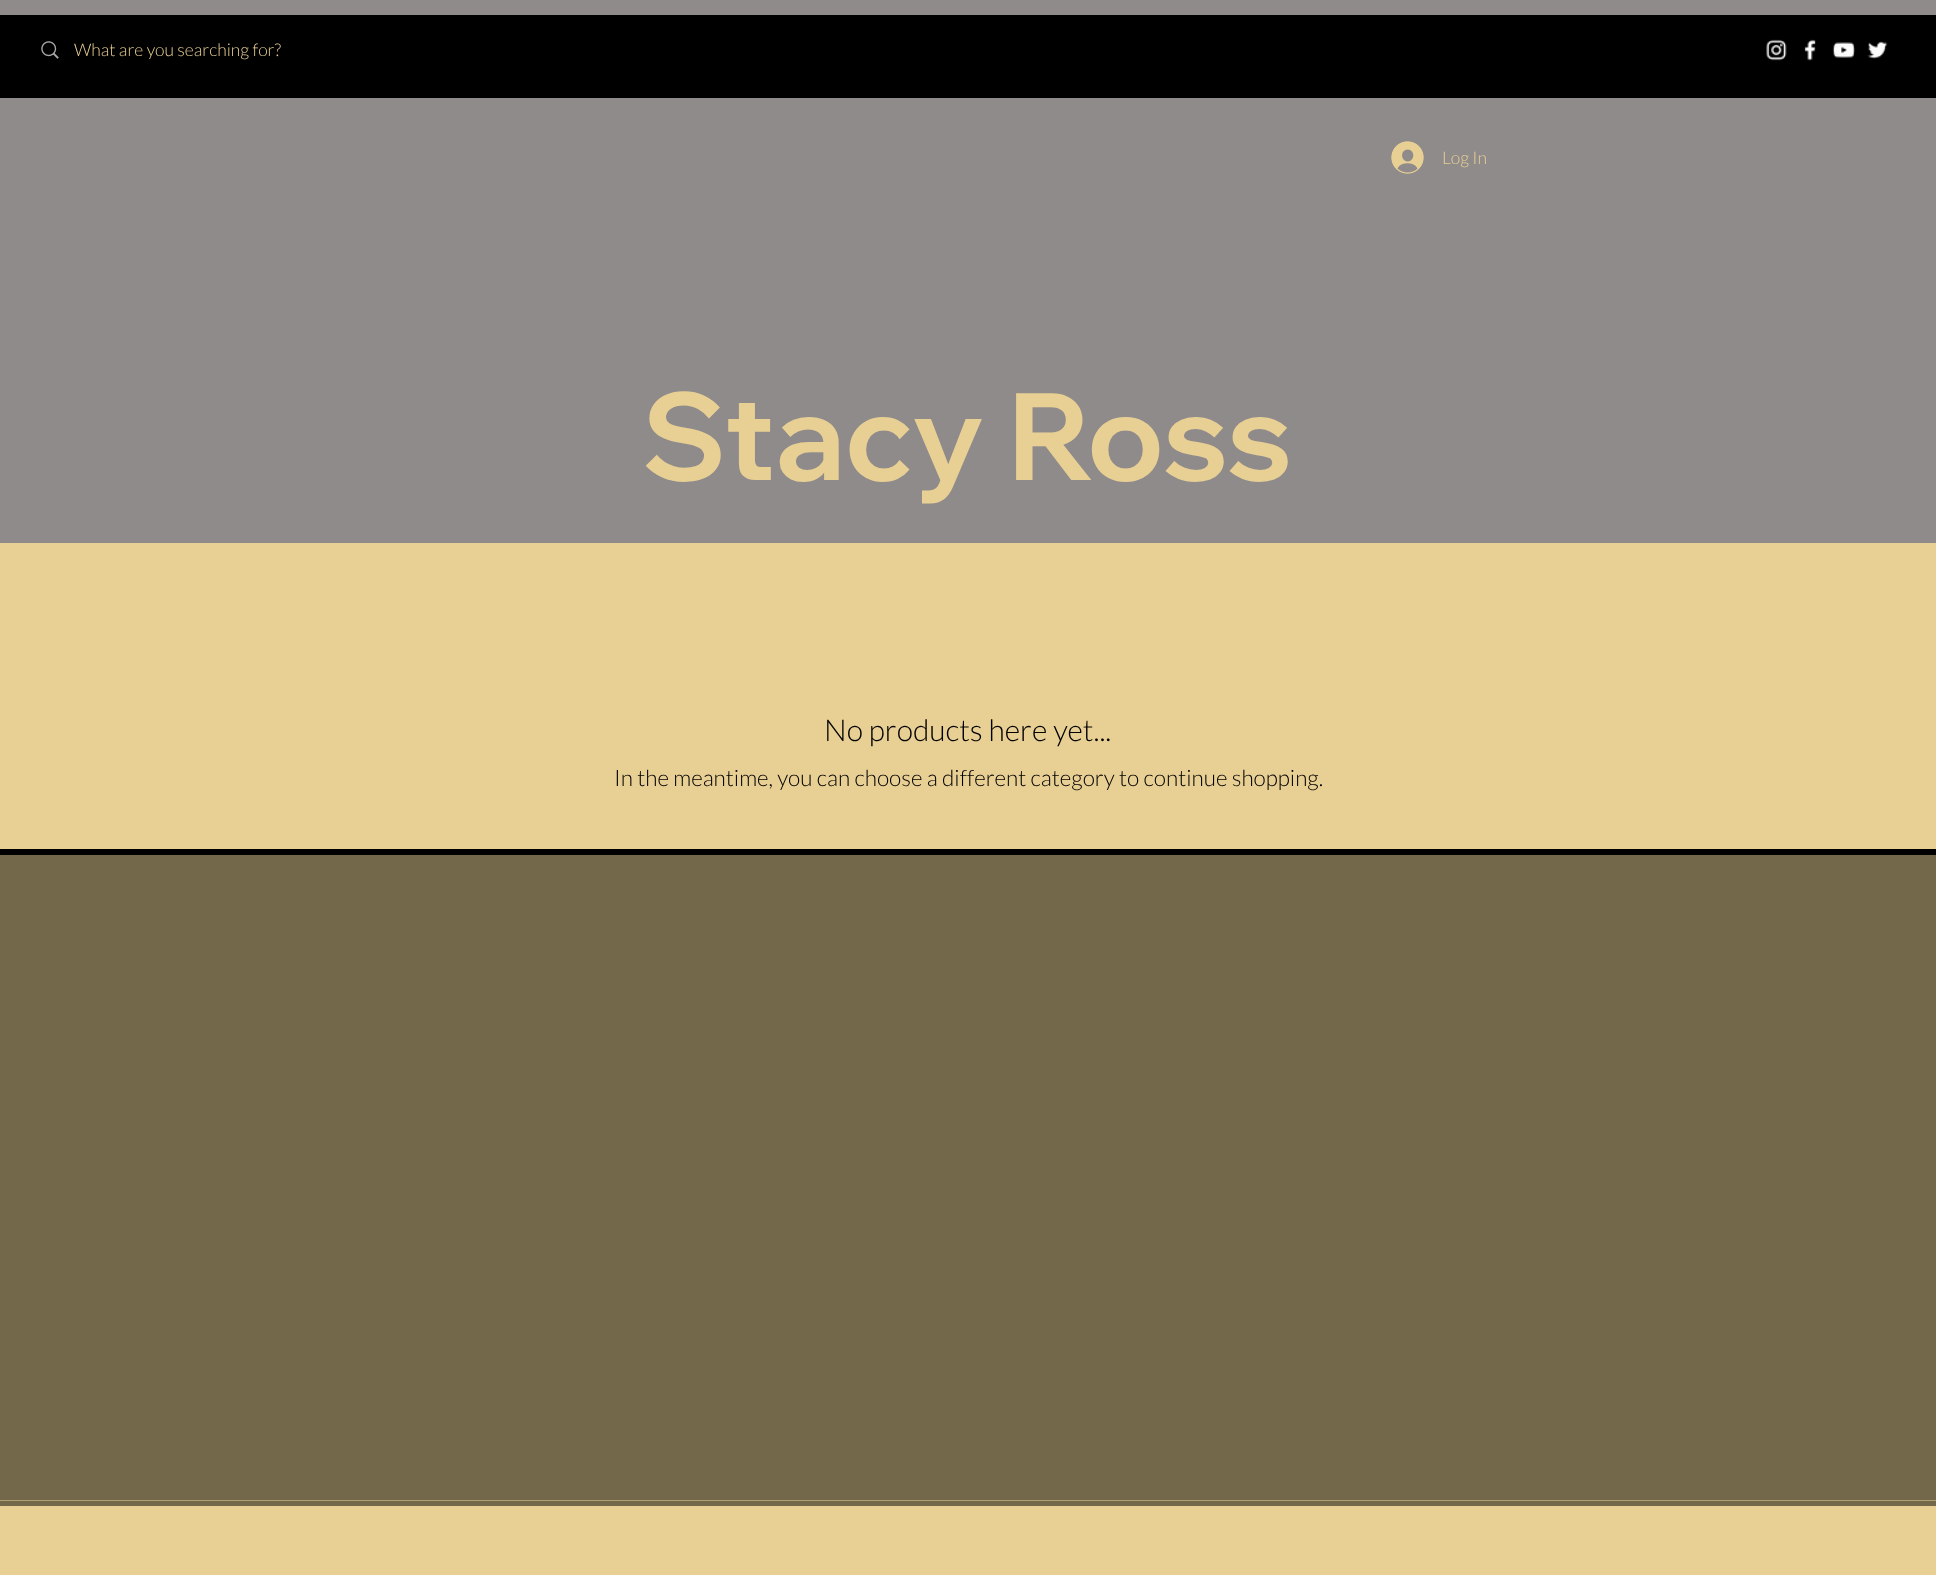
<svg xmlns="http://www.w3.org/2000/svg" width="1936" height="1575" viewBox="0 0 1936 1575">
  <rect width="100%" height="100%" fill="#e8cf94"/>
  <rect x="0" y="0" width="1936" height="543" fill="#8f8b8b"/>
  <rect x="0" y="15" width="1936" height="83" fill="#000000"/>
  <image x="41" y="41" width="18" height="18" href="img1.png"/>
  <text x="74" y="56" font-family="Lato" font-size="17.5" font-weight="300" fill="#e8cf94">What are you searching for?</text>
  <image x="1766" y="39" width="21" height="22" href="img2.png"/>
  <image x="1804" y="39" width="12" height="22" href="img3.png"/>
  <image x="1832" y="42" width="23" height="16" href="img4.png"/>
  <image x="1867" y="41" width="21" height="18" href="img5.png"/>
  <image x="1391" y="141" width="33" height="33" href="img6.png"/>
  <text x="1442" y="164" font-family="Lato" font-size="17.5" font-weight="300" fill="#e8cf94">Log In</text>
  <text x="642" y="480" font-family="Wix Madefor Display" font-size="121.25" font-weight="bold" fill="#e8cf94">Stacy Ross</text>
  <text x="824" y="741" font-family="Lato" font-size="30" font-weight="300" fill="#000000">No products here yet...</text>
  <text x="614" y="786" font-family="Lato" font-size="22.5" font-weight="300" fill="#000000">In the meantime, you can choose a different category to continue shopping.</text>
  <rect x="0" y="855" width="1936" height="651" fill="#74684a"/>
  <rect x="0" y="849" width="1936" height="6" fill="#000000"/>
  <rect x="0" y="1500" width="1936" height="1" fill="#b09e70"/>
</svg>
